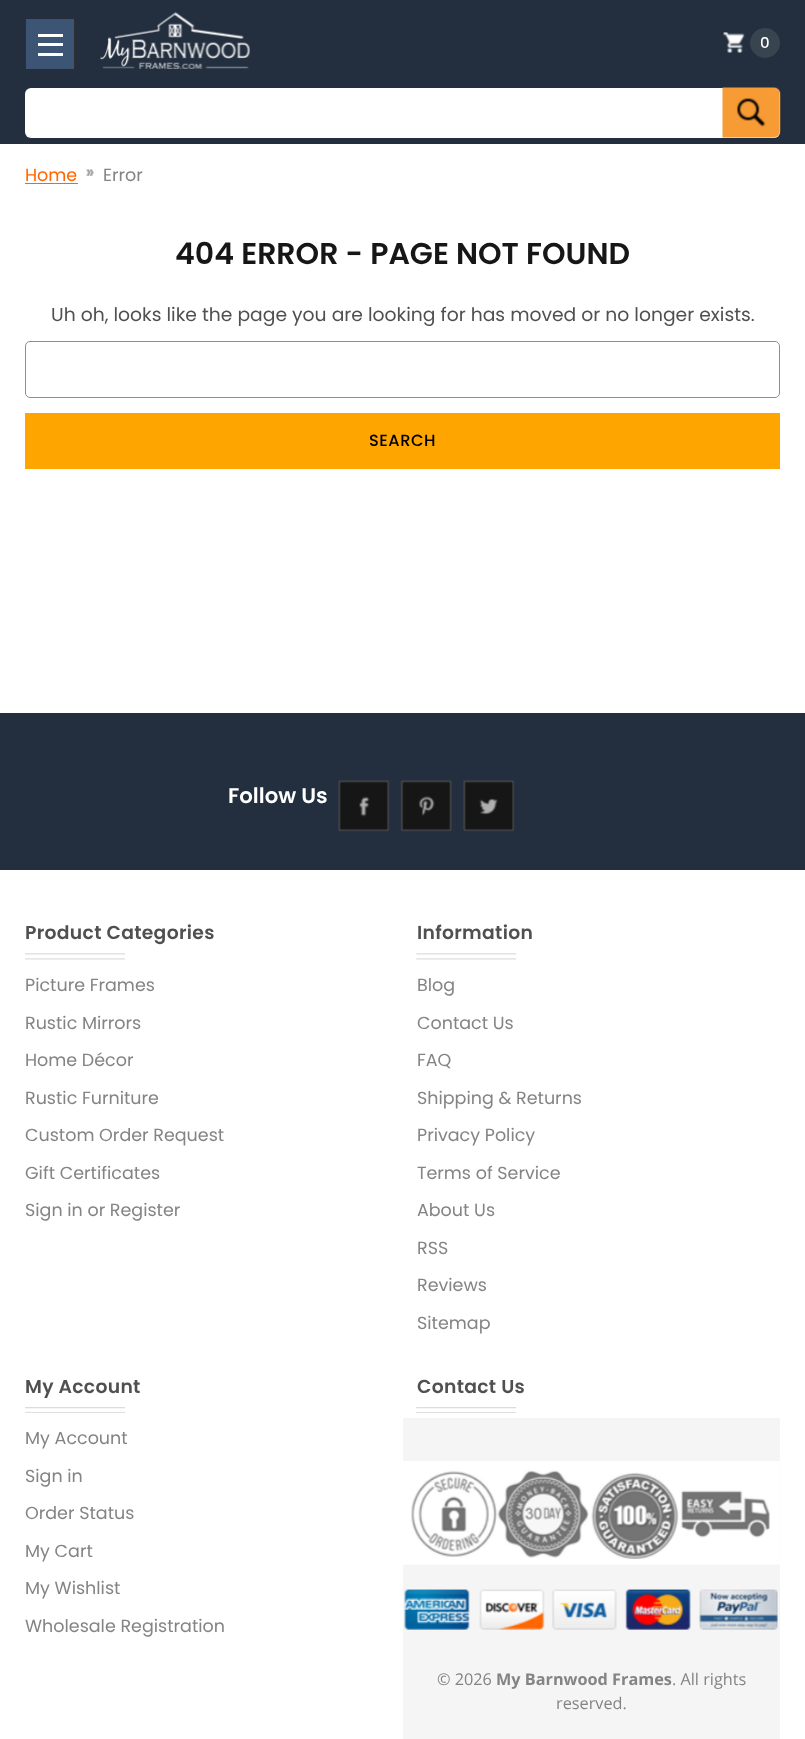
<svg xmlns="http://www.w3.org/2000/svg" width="805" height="1739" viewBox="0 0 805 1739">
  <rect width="100%" height="100%" fill="#ffffff"/>
  <rect x="0" y="0" width="805" height="144" fill="#232f3e"/>
  <rect x="26" y="19" width="48" height="50" fill="#3d5574"/>
  <rect x="74" y="19" width="1" height="50" fill="#2f2f2f"/>
  <rect x="25" y="19" width="1" height="50" fill="#2f2f2f"/>
  <rect x="38" y="43" width="25" height="3" fill="#ffffff"/>
  <rect x="38" y="34" width="25" height="3" fill="#ffffff"/>
  <rect x="38" y="53" width="25" height="3" fill="#ffffff"/>
  <image x="100" y="12" width="150" height="57" href="img1.png"/>
  <rect x="25" y="88" width="755" height="50" rx="6" fill="#ffffff"/>
  <image x="722" y="87" width="59" height="51" href="img2.png"/>
  <image x="723" y="32" width="22" height="21" href="img3.png"/>
  <circle cx="765" cy="43" r="15" fill="#394451"/>
  <text x="760" y="48" font-family="Poppins" font-size="15" font-weight="500" fill="#ffffff">0</text>
  <text x="25" y="181" font-family="Poppins" font-size="17.5" fill="#ff6600">Home</text>
  <rect x="25" y="183" width="53" height="1" fill="#ff6600"/>
  <image x="86" y="169" width="8" height="7" href="img4.png"/>
  <text x="103" y="181" font-family="Poppins" font-size="17.5" fill="#848484">Error</text>
  <text x="175" y="264" font-family="Poppins" font-size="30" font-weight="600" fill="#161616">404 ERROR - PAGE NOT FOUND</text>
  <text x="51" y="321" font-family="Poppins" font-size="18.75" fill="#505050">Uh oh, looks like the page you are looking for has moved or no longer exists.</text>
  <rect x="25.5" y="341.5" width="754" height="56" rx="4.5" fill="none" stroke="#8f8f8f"/>
  <rect x="25" y="413" width="755" height="56" fill="#ffa500"/>
  <text x="369" y="446" font-family="Poppins" font-size="16.25" font-weight="500" letter-spacing="0.5" fill="#000000">SEARCH</text>
  <rect x="0" y="713" width="805" height="157" fill="#232f3e"/>
  <text x="228" y="803" font-family="Poppins" font-size="21.25" font-weight="600" fill="#ffffff">Follow Us</text>
  <image x="338" y="780" width="52" height="52" href="img5.png"/>
  <image x="400" y="780" width="52" height="52" href="img6.png"/>
  <image x="463" y="780" width="52" height="52" href="img7.png"/>
  <image x="25" y="953" width="100" height="7" href="img8.png"/>
  <text x="25" y="939" font-family="Poppins" font-size="18.75" font-weight="600" letter-spacing="0.3" fill="#505050">Product Categories</text>
  <text x="25" y="991" font-family="Poppins" font-size="17.5" fill="#848484">Picture Frames</text>
  <text x="25" y="1029" font-family="Poppins" font-size="17.5" fill="#848484">Rustic Mirrors</text>
  <text x="25" y="1066" font-family="Poppins" font-size="17.5" fill="#848484">Home Décor</text>
  <text x="25" y="1104" font-family="Poppins" font-size="17.5" fill="#848484">Rustic Furniture</text>
  <text x="25" y="1141" font-family="Poppins" font-size="17.5" fill="#848484">Custom Order Request</text>
  <text x="25" y="1179" font-family="Poppins" font-size="17.5" fill="#848484">Gift Certificates</text>
  <text x="25" y="1216" font-family="Poppins" font-size="17.5" fill="#848484">Sign in or Register</text>
  <image x="416" y="953" width="101" height="7" href="img9.png"/>
  <text x="417" y="939" font-family="Poppins" font-size="18.75" font-weight="600" letter-spacing="0.3" fill="#505050">Information</text>
  <text x="417" y="991" font-family="Poppins" font-size="17.5" fill="#848484">Blog</text>
  <text x="417" y="1029" font-family="Poppins" font-size="17.5" fill="#848484">Contact Us</text>
  <text x="417" y="1066" font-family="Poppins" font-size="17.5" fill="#848484">FAQ</text>
  <text x="417" y="1104" font-family="Poppins" font-size="17.5" fill="#848484">Shipping &amp; Returns</text>
  <text x="417" y="1141" font-family="Poppins" font-size="17.5" fill="#848484">Privacy Policy</text>
  <text x="417" y="1179" font-family="Poppins" font-size="17.5" fill="#848484">Terms of Service</text>
  <text x="417" y="1216" font-family="Poppins" font-size="17.5" fill="#848484">About Us</text>
  <text x="417" y="1254" font-family="Poppins" font-size="17.5" fill="#848484">RSS</text>
  <text x="417" y="1291" font-family="Poppins" font-size="17.5" fill="#848484">Reviews</text>
  <text x="417" y="1329" font-family="Poppins" font-size="17.5" fill="#848484">Sitemap</text>
  <image x="25" y="1407" width="100" height="6" href="img10.png"/>
  <text x="25" y="1393" font-family="Poppins" font-size="18.75" font-weight="600" letter-spacing="0.3" fill="#505050">My Account</text>
  <text x="25" y="1444" font-family="Poppins" font-size="17.5" fill="#848484">My Account</text>
  <text x="25" y="1482" font-family="Poppins" font-size="17.5" fill="#848484">Sign in</text>
  <text x="25" y="1519" font-family="Poppins" font-size="17.5" fill="#848484">Order Status</text>
  <text x="25" y="1557" font-family="Poppins" font-size="17.5" fill="#848484">My Cart</text>
  <text x="25" y="1594" font-family="Poppins" font-size="17.5" fill="#848484">My Wishlist</text>
  <text x="25" y="1632" font-family="Poppins" font-size="17.5" fill="#848484">Wholesale Registration</text>
  <image x="416" y="1407" width="101" height="6" href="img11.png"/>
  <text x="417" y="1393" font-family="Poppins" font-size="18.75" font-weight="600" letter-spacing="0.3" fill="#505050">Contact Us</text>
  <rect x="403" y="1418" width="377" height="321" fill="#f5f5f5"/>
  <image x="403" y="1461" width="377" height="104" href="img12.png"/>
  <image x="404" y="1589" width="374" height="41" href="img13.png"/>
  <text x="437" y="1685" font-family="Open Sans" font-size="16.25" fill="#848484">© 2026</text>
  <text x="496" y="1685" font-family="Open Sans" font-size="16.25" font-weight="bold" fill="#848484">My Barnwood Frames</text>
  <text x="672" y="1685" font-family="Open Sans" font-size="16.25" fill="#848484">. All rights</text>
  <text x="556" y="1709" font-family="Open Sans" font-size="16.25" fill="#848484">reserved.</text>
</svg>
